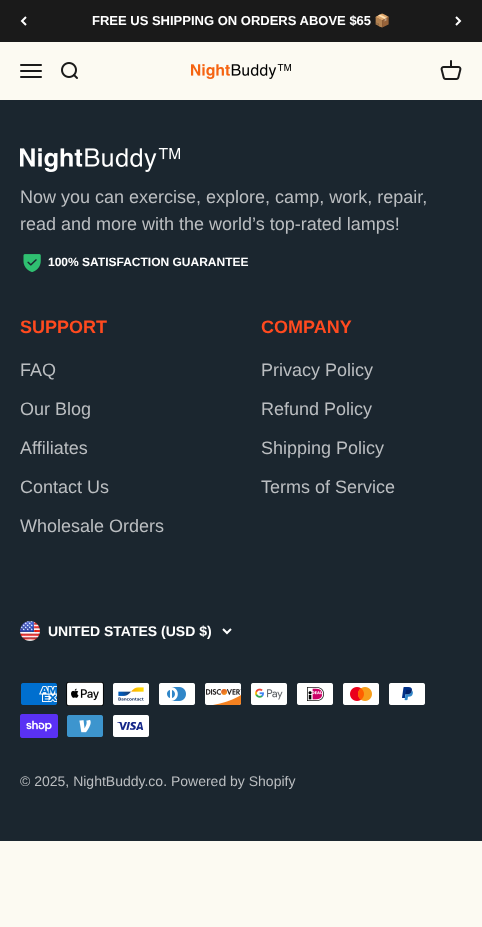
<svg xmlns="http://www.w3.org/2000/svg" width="482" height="927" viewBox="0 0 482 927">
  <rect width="100%" height="100%" fill="#fcfaf2"/>
  <rect x="0" y="0" width="482" height="42" fill="#1a1a1a"/>
  <path d="M26 17L22 21L26 25" fill="none" stroke="#ffffff" stroke-width="2"/>
  <text x="92" y="25" font-family="Liberation Sans" font-size="13" font-weight="bold" fill="#ffffff">FREE US SHIPPING ON ORDERS ABOVE $65</text>
  <text x="374" y="25" font-family="Noto Color Emoji" font-size="13" font-weight="bold" fill="#ffffff">📦</text>
  <path d="M456 25L460 21L456 17" fill="none" stroke="#ffffff" stroke-width="2"/>
  <image x="20" y="64" width="22" height="14" href="img1.png"/>
  <image x="61" y="62" width="17" height="17" href="img2.png"/>
  <image x="191" y="64" width="100" height="15" href="img3.png"/>
  <image x="440" y="60" width="22" height="20" href="img4.png"/>
  <rect x="0" y="100" width="482" height="741" fill="#1b262f"/>
  <image x="20" y="148" width="160" height="24" href="img5.png"/>
  <text x="20" y="203" font-family="Liberation Sans" font-size="18" fill="#bbbec1">Now you can exercise, explore, camp, work, repair,</text>
  <text x="20" y="230" font-family="Liberation Sans" font-size="18" fill="#bbbec1">read and more with the world’s top-rated lamps!</text>
  <image x="23" y="254" width="18" height="18" href="img6.png"/>
  <text x="48" y="266" font-family="Liberation Sans" font-size="12" font-weight="bold" fill="#ffffff">100% SATISFACTION GUARANTEE</text>
  <text x="20" y="333" font-family="Liberation Sans" font-size="18" font-weight="bold" fill="#ff4a1f">SUPPORT</text>
  <text x="20" y="376" font-family="Liberation Sans" font-size="18" fill="#bbbec1">FAQ</text>
  <text x="20" y="415" font-family="Liberation Sans" font-size="18" fill="#bbbec1">Our Blog</text>
  <text x="20" y="454" font-family="Liberation Sans" font-size="18" fill="#bbbec1">Affiliates</text>
  <text x="20" y="493" font-family="Liberation Sans" font-size="18" fill="#bbbec1">Contact Us</text>
  <text x="20" y="532" font-family="Liberation Sans" font-size="18" fill="#bbbec1">Wholesale Orders</text>
  <text x="261" y="333" font-family="Liberation Sans" font-size="18" font-weight="bold" fill="#ff4a1f">COMPANY</text>
  <text x="261" y="376" font-family="Liberation Sans" font-size="18" fill="#bbbec1">Privacy Policy</text>
  <text x="261" y="415" font-family="Liberation Sans" font-size="18" fill="#bbbec1">Refund Policy</text>
  <text x="261" y="454" font-family="Liberation Sans" font-size="18" fill="#bbbec1">Shipping Policy</text>
  <text x="261" y="493" font-family="Liberation Sans" font-size="18" fill="#bbbec1">Terms of Service</text>
  <image x="20" y="621" width="20" height="20" href="img7.png"/>
  <text x="48" y="636" font-family="Liberation Sans" font-size="14" font-weight="bold" fill="#ffffff">UNITED STATES (USD $)</text>
  <path d="M223 629L227 633L231 629" fill="none" stroke="#ffffff" stroke-width="2"/>
  <image x="21" y="683" width="36" height="22" href="img8.png"/>
  <image x="66" y="682" width="38" height="24" href="img9.png"/>
  <image x="113" y="683" width="36" height="22" href="img10.png"/>
  <image x="159" y="683" width="36" height="22" href="img11.png"/>
  <image x="205" y="683" width="36" height="22" href="img12.png"/>
  <image x="251" y="683" width="36" height="22" href="img13.png"/>
  <image x="297" y="683" width="36" height="22" href="img14.png"/>
  <image x="343" y="683" width="36" height="22" href="img15.png"/>
  <image x="389" y="683" width="36" height="22" href="img16.png"/>
  <image x="20" y="714" width="38" height="24" href="img17.png"/>
  <image x="67" y="715" width="36" height="22" href="img18.png"/>
  <image x="113" y="715" width="36" height="22" href="img19.png"/>
  <text x="20" y="786" font-family="Liberation Sans" font-size="14" fill="#bbbec1">© 2025, NightBuddy.co. Powered by Shopify</text>
</svg>
